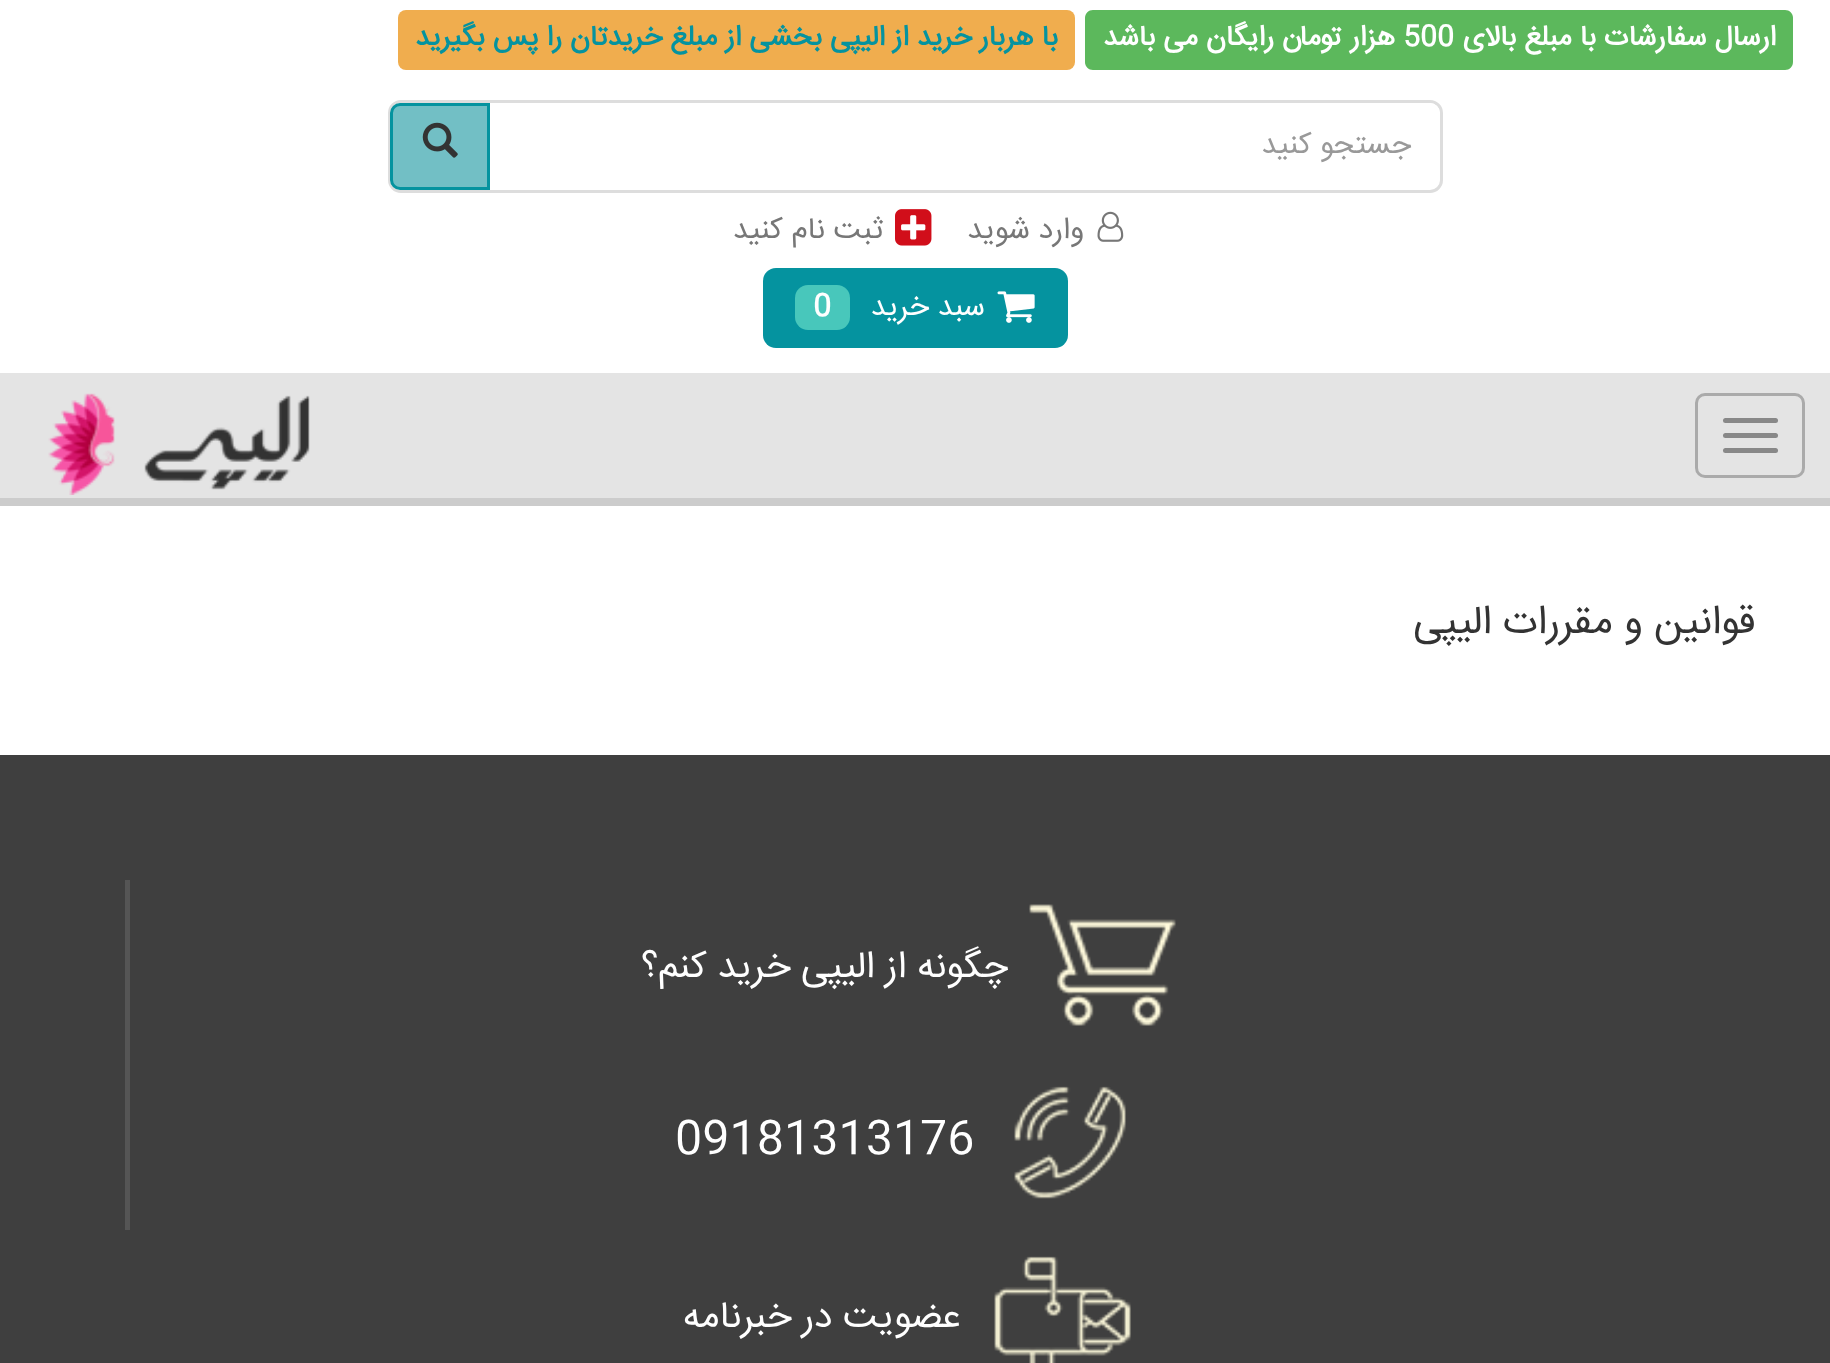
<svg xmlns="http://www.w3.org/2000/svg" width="1830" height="1363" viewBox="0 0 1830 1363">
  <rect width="100%" height="100%" fill="#ffffff"/>
  <path d="M1455 10H1785C1789.5 10 1793 13.5 1793 18V62C1793 66.5 1789.5 70 1785 70H1455Z" fill="#5cb85c"/>
  <text x="1776" y="45" font-family="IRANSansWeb" font-size="28.1" font-weight="bold" direction="rtl" fill="#ffffff">ارسال سفارشات با مبلغ بالای</text>
  <rect x="1403" y="10" width="52" height="60" fill="#5cb85c"/>
  <text x="1403" y="45" font-family="IRANSansWeb" font-size="28.1" font-weight="bold" fill="#ffffff">500</text>
  <path d="M1093 10H1403V70H1093C1088.5 70 1085 66.5 1085 62V18C1085 13.5 1088.5 10 1093 10Z" fill="#5cb85c"/>
  <text x="1395" y="45" font-family="IRANSansWeb" font-size="28.1" font-weight="bold" direction="rtl" fill="#ffffff">هزار تومان رایگان</text>
  <text x="1198" y="45" font-family="IRANSansWeb" font-size="28.1" font-weight="bold" direction="rtl" fill="#ffffff">می باشد</text>
  <rect x="398" y="10" width="677" height="60" rx="8" fill="#f0ad4e"/>
  <text x="1058" y="45" font-family="IRANSansWeb" font-size="28.1" font-weight="bold" direction="rtl" fill="#05939f">با هربار خرید از الیپی بخشی از مبلغ خریدتان را پس بگیرید</text>
  <rect x="389.5" y="101.5" width="1052" height="90" rx="11.5" fill="none" stroke="#dddddd" stroke-width="3"/>
  <path d="M489.5 104.5H1430C1434.5 104.5 1438.5 108.5 1438.5 113V178C1438.5 182.5 1434.5 186.5 1430 186.5H489.5Z" fill="#ffffff" stroke="#ffffff" stroke-width="3"/>
  <text x="1411" y="153" font-family="IRANSansWeb" font-size="30" direction="rtl" fill="#999999">جستجو کنید</text>
  <path d="M400 104.5H488.5V188.5H400C395.5 188.5 391.5 184.5 391.5 180V113C391.5 108.5 395.5 104.5 400 104.5Z" fill="#72bfc5" stroke="#05939f" stroke-width="3"/>
  <image x="422" y="122" width="36" height="36" href="img1.png"/>
  <image x="1097" y="211" width="27" height="31" href="img2.png"/>
  <text x="1084" y="238" font-family="IRANSansWeb" font-size="30" direction="rtl" fill="#777777">وارد شوید</text>
  <image x="895" y="209" width="37" height="37" href="img3.png"/>
  <text x="883" y="238" font-family="IRANSansWeb" font-size="30" direction="rtl" fill="#777777">ثبت نام کنید</text>
  <rect x="763" y="268" width="305" height="80" rx="13" fill="#05939f"/>
  <image x="997" y="291" width="38" height="32" href="img4.png"/>
  <text x="985" y="315" font-family="IRANSansWeb" font-size="30" direction="rtl" fill="#ffffff">سبد خرید</text>
  <rect x="795" y="285" width="55" height="45" rx="13" fill="#48c7bb"/>
  <text x="813" y="315" font-family="IRANSansWeb" font-size="30" font-weight="bold" fill="#ffffff">0</text>
  <rect x="0" y="498" width="1830" height="8" fill="#cccccc"/>
  <rect x="0" y="373" width="1830" height="125" fill="#e4e4e4"/>
  <rect x="1696.5" y="394.5" width="107" height="82" rx="8.5" fill="none" stroke="#aaaaaa" stroke-width="3"/>
  <rect x="1723" y="418" width="55" height="5" rx="2.5" fill="#888888"/>
  <rect x="1723" y="433" width="55" height="5" rx="2.5" fill="#888888"/>
  <rect x="1723" y="448" width="55" height="5" rx="2.5" fill="#888888"/>
  <image x="48" y="393" width="262" height="102" href="img5.png"/>
  <text x="1755" y="633" font-family="IRANSansWeb" font-size="40" direction="rtl" fill="#333333">قوانین و مقررات الیپی</text>
  <rect x="0" y="755" width="1830" height="608" fill="#3f3f3f"/>
  <rect x="125" y="880" width="5" height="350" fill="#555555"/>
  <image x="1029" y="904" width="147" height="122" href="img6.png"/>
  <text x="1008" y="977" font-family="IRANSansWeb" font-size="37.5" direction="rtl" fill="#ffffff">چگونه از الیپی خرید کنم؟</text>
  <image x="1014" y="1086" width="112" height="113" href="img7.png"/>
  <text x="675" y="1152" font-family="IRANSansWeb" font-size="45" fill="#ffffff">09181313176</text>
  <image x="994" y="1256" width="137" height="107" href="img8.png"/>
  <text x="961" y="1327" font-family="IRANSansWeb" font-size="37.5" direction="rtl" fill="#ffffff">عضویت در خبرنامه</text>
</svg>
